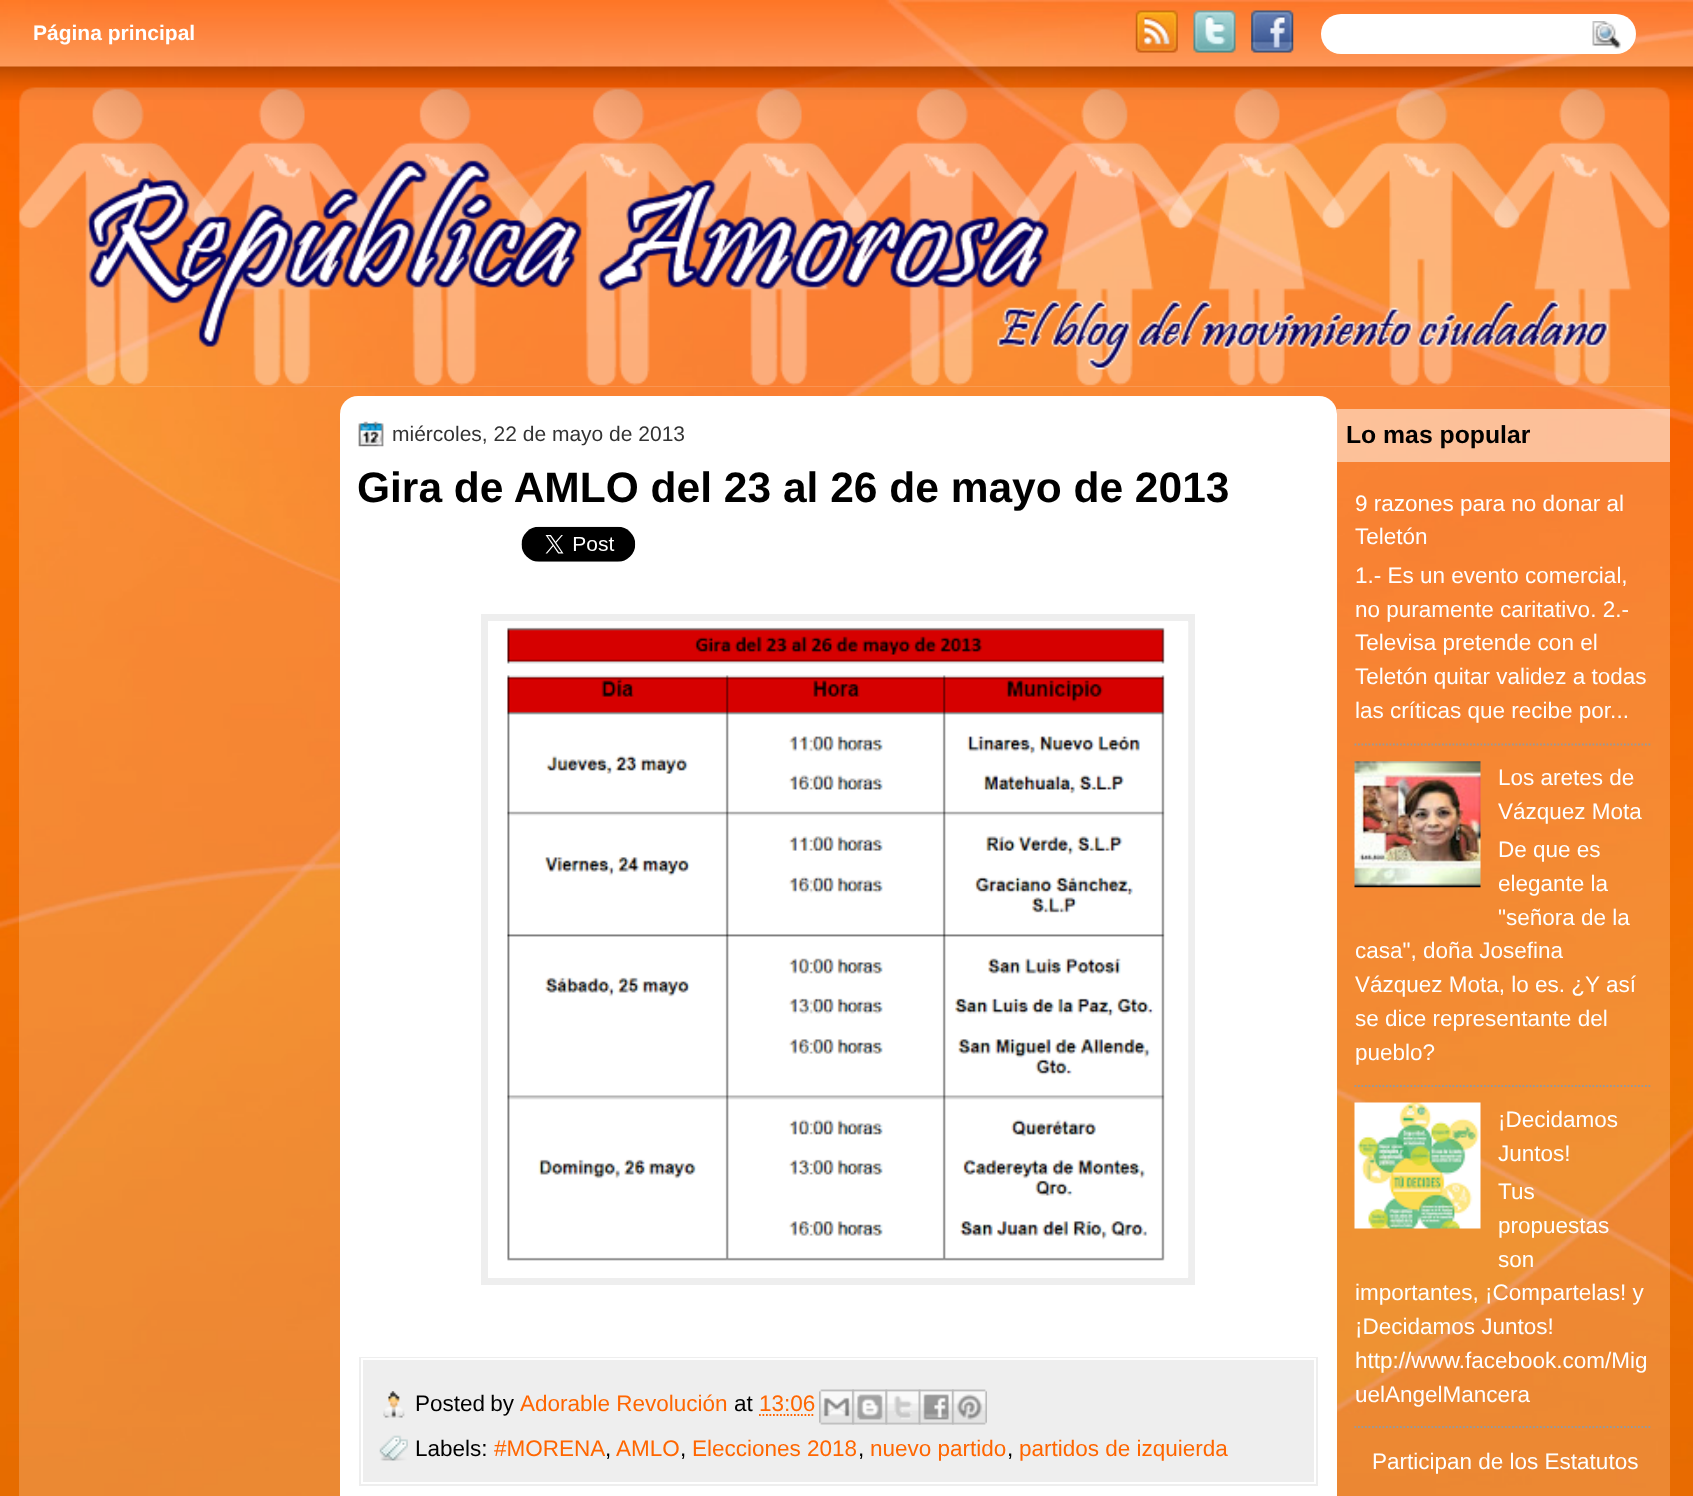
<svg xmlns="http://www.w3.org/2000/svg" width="1693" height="1496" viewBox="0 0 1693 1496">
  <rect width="100%" height="100%" fill="#ffffff"/>
  <image x="0" y="0" width="1693" height="1496" href="img1.png"/>
  <image x="0" y="0" width="1693" height="100" href="img2.png"/>
  <text x="33" y="40" font-family="Liberation Sans" font-size="21" font-weight="bold" fill="#ffffff">Página principal</text>
  <image x="1135" y="10" width="43" height="43" href="img3.png"/>
  <image x="1193" y="10" width="43" height="43" href="img4.png"/>
  <image x="1251" y="10" width="43" height="43" href="img5.png"/>
  <rect x="1321" y="14" width="315" height="40" rx="20" fill="#ffffff"/>
  <image x="1592" y="21" width="29" height="28" href="img6.png"/>
  <rect x="19" y="386" width="1651" height="1110" fill="#ffffff" fill-opacity="0.2"/>
  <image x="18" y="87" width="1652" height="300" href="img7.png"/>
  <rect x="340" y="396" width="997" height="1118" rx="18" fill="#ffffff"/>
  <image x="358" y="421" width="26" height="26" href="img8.png"/>
  <text x="392" y="441" font-family="Liberation Sans" font-size="21" fill="#333333">miércoles, 22 de mayo de 2013</text>
  <text x="357" y="502" font-family="Liberation Sans" font-size="42.5" font-weight="bold" fill="#000000">Gira de AMLO del 23 al 26 de mayo de 2013</text>
  <image x="521" y="526" width="115" height="36" href="img9.png"/>
  <rect x="484.5" y="617.5" width="707" height="664" fill="none" stroke="#eeeeee" stroke-width="7"/>
  <image x="507" y="622" width="682" height="655" href="img10.png"/>
  <rect x="359" y="1357" width="959" height="129" fill="#eeeeee"/>
  <rect x="362" y="1359" width="953" height="124" fill="none" stroke="#ffffff" stroke-width="2"/>
  <image x="383" y="1391" width="22" height="27" href="img11.png"/>
  <text x="415" y="1411" word-spacing="-1" font-family="Liberation Sans" font-size="22.5" fill="#000000">Posted by</text>
  <text x="520" y="1411" font-family="Liberation Sans" font-size="22.5" fill="#ff6600">Adorable Revolución</text>
  <text x="734" y="1411" font-family="Liberation Sans" font-size="22.5" fill="#000000">at</text>
  <text x="759" y="1411" font-family="Liberation Sans" font-size="22.5" fill="#ff6600">13:06</text>
  <path d="M759 1415H815" fill="none" stroke="#ff6600" stroke-width="1.8" stroke-dasharray="1.75 1.75"/>
  <image x="819" y="1389" width="35" height="36" href="img12.png"/>
  <image x="852" y="1389" width="36" height="36" href="img13.png"/>
  <image x="885" y="1389" width="36" height="36" href="img14.png"/>
  <image x="918" y="1389" width="36" height="36" href="img15.png"/>
  <image x="952" y="1389" width="35" height="36" href="img16.png"/>
  <image x="379" y="1435" width="29" height="26" href="img17.png"/>
  <text x="415" y="1456" font-family="Liberation Sans" font-size="22.5" fill="#000000">Labels:</text>
  <text x="494" y="1456" font-family="Liberation Sans" font-size="22.5" fill="#ff6600">#MORENA</text>
  <text x="605" y="1456" font-family="Liberation Sans" font-size="22.5" fill="#000000">,</text>
  <text x="616" y="1456" font-family="Liberation Sans" font-size="22.5" fill="#ff6600">AMLO</text>
  <text x="680" y="1456" font-family="Liberation Sans" font-size="22.5" fill="#000000">,</text>
  <text x="692" y="1456" font-family="Liberation Sans" font-size="22.5" fill="#ff6600">Elecciones 2018</text>
  <text x="858" y="1456" font-family="Liberation Sans" font-size="22.5" fill="#000000">,</text>
  <text x="870" y="1456" font-family="Liberation Sans" font-size="22.5" fill="#ff6600">nuevo partido</text>
  <text x="1007" y="1456" font-family="Liberation Sans" font-size="22.5" fill="#000000">,</text>
  <text x="1019" y="1456" font-family="Liberation Sans" font-size="22.5" fill="#ff6600">partidos de izquierda</text>
  <rect x="1337" y="409" width="333" height="53" fill="#ffffff" fill-opacity="0.5"/>
  <text x="1346" y="443" font-family="Liberation Sans" font-size="24.75" font-weight="bold" fill="#000000">Lo mas popular</text>
  <path d="M1354.5 744.5H1652" fill="none" stroke="#999999" stroke-width="1.8" stroke-dasharray="1.75 1.75"/>
  <text x="1355" y="511" font-family="Liberation Sans" font-size="22.5" fill="#ffffff">9 razones para no donar al</text>
  <text x="1355" y="544" font-family="Liberation Sans" font-size="22.5" fill="#ffffff">Teletón</text>
  <text x="1355" y="583" font-family="Liberation Sans" font-size="22.5" fill="#ffffff">1.- Es un evento comercial,</text>
  <text x="1355" y="617" font-family="Liberation Sans" font-size="22.5" fill="#ffffff">no puramente caritativo. 2.-</text>
  <text x="1355" y="650" font-family="Liberation Sans" font-size="22.5" fill="#ffffff">Televisa pretende con el</text>
  <text x="1355" y="684" font-family="Liberation Sans" font-size="22.5" fill="#ffffff">Teletón quitar validez a todas</text>
  <text x="1355" y="718" font-family="Liberation Sans" font-size="22.5" fill="#ffffff">las críticas que recibe por...</text>
  <path d="M1354.5 1086H1652" fill="none" stroke="#999999" stroke-width="1.8" stroke-dasharray="1.75 1.75"/>
  <image x="1354" y="761" width="127" height="127" href="img18.png"/>
  <text x="1498" y="785" font-family="Liberation Sans" font-size="22.5" fill="#ffffff">Los aretes de</text>
  <text x="1498" y="819" font-family="Liberation Sans" font-size="22.5" fill="#ffffff">Vázquez Mota</text>
  <text x="1498" y="857" font-family="Liberation Sans" font-size="22.5" fill="#ffffff">De que es</text>
  <text x="1498" y="891" font-family="Liberation Sans" font-size="22.5" fill="#ffffff">elegante la</text>
  <text x="1498" y="925" font-family="Liberation Sans" font-size="22.5" fill="#ffffff">"señora de la</text>
  <text x="1355" y="958" font-family="Liberation Sans" font-size="22.5" fill="#ffffff">casa", doña Josefina</text>
  <text x="1355" y="992" font-family="Liberation Sans" font-size="22.5" fill="#ffffff">Vázquez Mota, lo es. ¿Y así</text>
  <text x="1355" y="1026" font-family="Liberation Sans" font-size="22.5" fill="#ffffff">se dice representante del</text>
  <text x="1355" y="1060" font-family="Liberation Sans" font-size="22.5" fill="#ffffff">pueblo?</text>
  <path d="M1354.5 1427H1652" fill="none" stroke="#999999" stroke-width="1.8" stroke-dasharray="1.75 1.75"/>
  <image x="1354" y="1102" width="127" height="127" href="img19.png"/>
  <text x="1498" y="1127" font-family="Liberation Sans" font-size="22.5" fill="#ffffff">¡Decidamos</text>
  <text x="1498" y="1161" font-family="Liberation Sans" font-size="22.5" fill="#ffffff">Juntos!</text>
  <text x="1498" y="1199" font-family="Liberation Sans" font-size="22.5" fill="#ffffff">Tus</text>
  <text x="1498" y="1233" font-family="Liberation Sans" font-size="22.5" fill="#ffffff">propuestas</text>
  <text x="1498" y="1267" font-family="Liberation Sans" font-size="22.5" fill="#ffffff">son</text>
  <text x="1355" y="1300" font-family="Liberation Sans" font-size="22.5" fill="#ffffff">importantes, ¡Compartelas! y</text>
  <text x="1355" y="1334" font-family="Liberation Sans" font-size="22.5" fill="#ffffff">¡Decidamos Juntos!</text>
  <text x="1355" y="1368" font-family="Liberation Sans" font-size="22.5" fill="#ffffff">http://www.facebook.com/Mig</text>
  <text x="1355" y="1402" font-family="Liberation Sans" font-size="22.5" fill="#ffffff">uelAngelMancera</text>
  <text x="1372" y="1469" font-family="Liberation Sans" font-size="22.5" fill="#ffffff">Participan de los Estatutos</text>
</svg>
